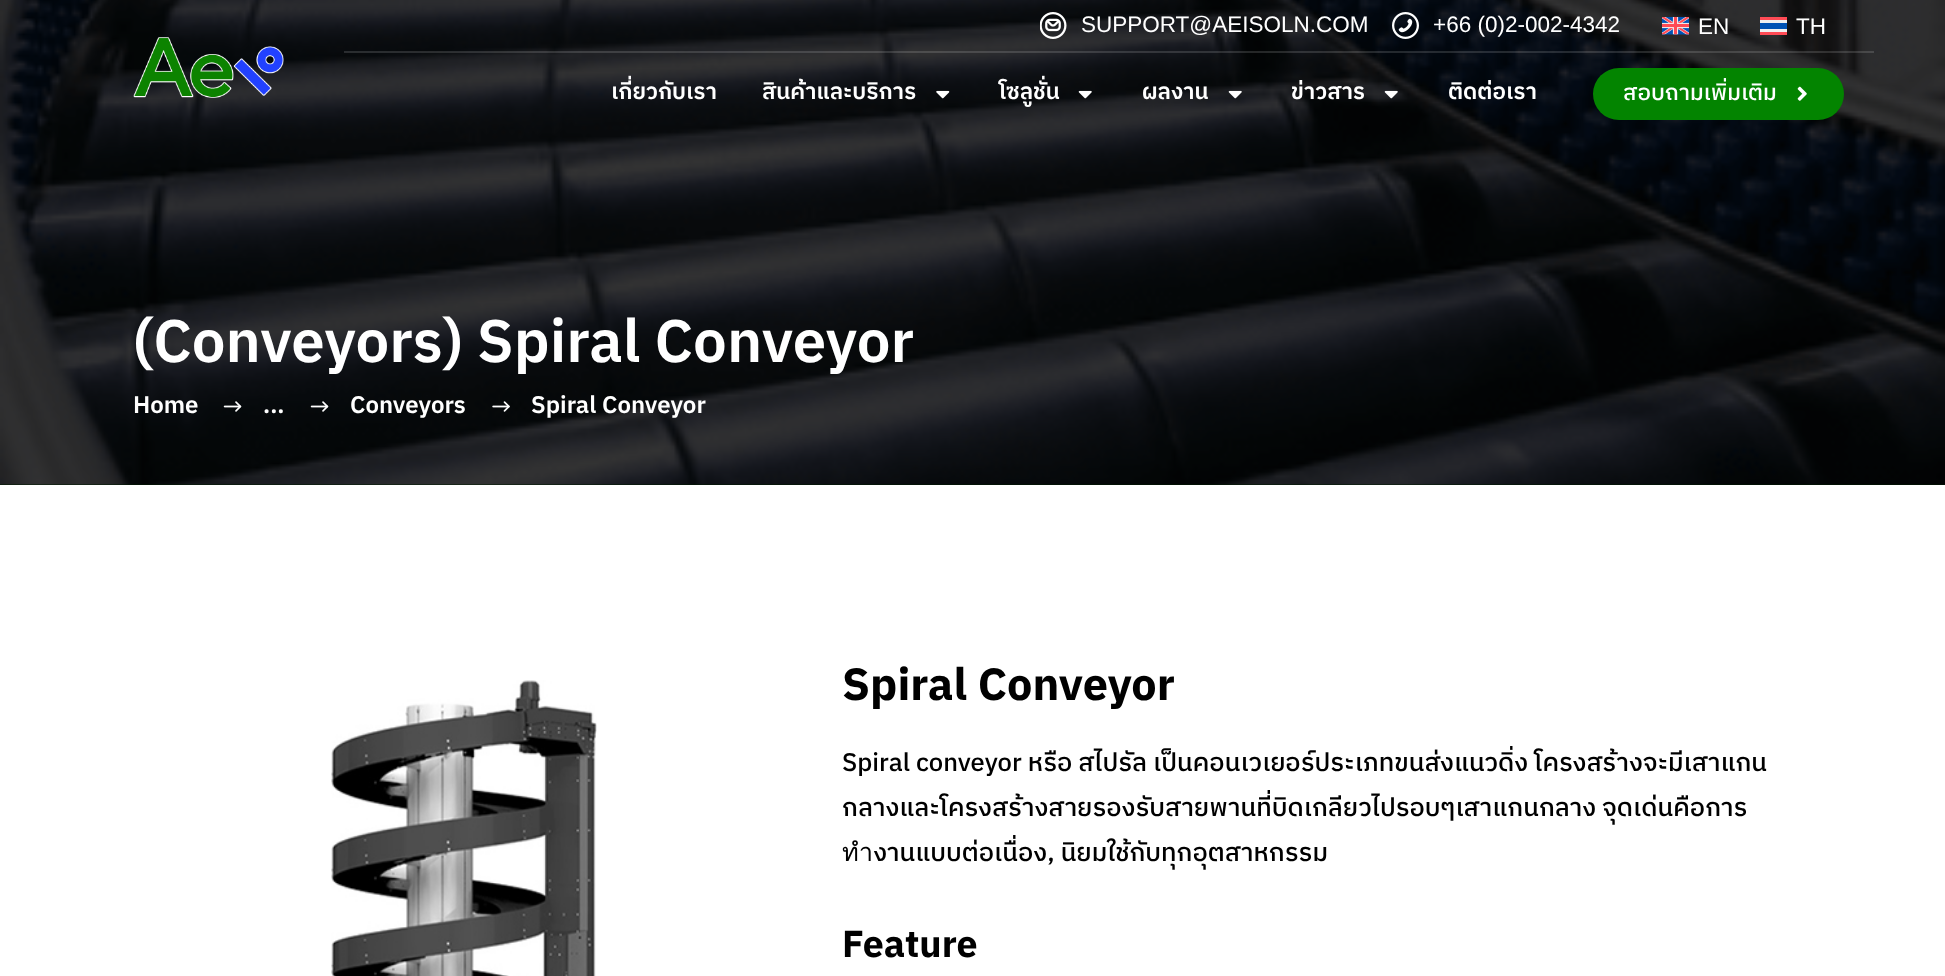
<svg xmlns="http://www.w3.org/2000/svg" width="1945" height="976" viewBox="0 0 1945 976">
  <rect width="100%" height="100%" fill="#ffffff"/>
  <rect x="0" y="484" width="1945" height="1" fill="#011a00"/>
  <image x="0" y="0" width="1945" height="485" href="img10.png"/>
  <image x="133" y="37" width="151" height="61" href="img1.png"/>
  <image x="1040" y="12" width="27" height="27" href="img2.png"/>
  <text x="1081" y="32" font-family="Liberation Sans" font-size="22.5" fill="#ffffff">SUPPORT@AEISOLN.COM</text>
  <image x="1392" y="12" width="27" height="27" href="img3.png"/>
  <text x="1433" y="32" font-family="Liberation Sans" font-size="22.5" fill="#ffffff">+66 (0)2-002-4342</text>
  <image x="1662" y="17" width="27" height="18" href="img4.png"/>
  <text x="1698" y="34" font-family="Liberation Sans" font-size="22.5" fill="#ffffff">EN</text>
  <rect x="1760" y="17" width="27" height="18" fill="#ff4b55"/>
  <text x="1796" y="34" font-family="Liberation Sans" font-size="22.5" fill="#ffffff">TH</text>
  <rect x="1760" y="20" width="27" height="12" fill="#f0f0f0"/>
  <rect x="1760" y="23" width="27" height="6" fill="#0052b4"/>
  <rect x="344" y="51" width="1530" height="2" fill="#ffffff" fill-opacity="0.14"/>
  <text x="611" y="99" font-family="IBM Plex Sans Thai" font-size="22.5" font-weight="600" fill="#ffffff">เกี่ยวกับเรา</text>
  <text x="762" y="99" font-family="IBM Plex Sans Thai" font-size="22.5" font-weight="600" fill="#ffffff">สินค้าและบริการ</text>
  <image x="936" y="90" width="14" height="9" href="img5.png"/>
  <text x="999" y="99" font-family="IBM Plex Sans Thai" font-size="22.5" font-weight="600" fill="#ffffff">โซลูชั่น</text>
  <image x="1078" y="90" width="14" height="9" href="img6.png"/>
  <text x="1142" y="99" font-family="IBM Plex Sans Thai" font-size="22.5" font-weight="600" fill="#ffffff">ผลงาน</text>
  <image x="1228" y="90" width="14" height="9" href="img7.png"/>
  <text x="1291" y="99" font-family="IBM Plex Sans Thai" font-size="22.5" font-weight="600" fill="#ffffff">ข่าวสาร</text>
  <image x="1384" y="90" width="14" height="9" href="img8.png"/>
  <text x="1448" y="99" font-family="IBM Plex Sans Thai" font-size="22.5" font-weight="600" fill="#ffffff">ติดต่อเรา</text>
  <rect x="1593" y="68" width="251" height="52" rx="26" fill="#038400"/>
  <text x="1623" y="100" font-family="IBM Plex Sans Thai" font-size="22.5" font-weight="500" fill="#ffffff">สอบถามเพิ่มเติม</text>
  <image x="1797" y="86" width="10" height="15" href="img9.png"/>
  <text x="133" y="362" font-family="IBM Plex Sans Thai" font-size="60" font-weight="600" fill="#ffffff">(Conveyors) Spiral Conveyor</text>
  <text x="133" y="413" font-family="IBM Plex Sans Thai" font-size="24" font-weight="600" fill="#ffffff">Home</text>
  <image x="223" y="401" width="19" height="11" href="img11.png"/>
  <text x="263" y="413" font-family="IBM Plex Sans Thai" font-size="24" font-weight="600" fill="#ffffff">...</text>
  <image x="310" y="401" width="19" height="11" href="img12.png"/>
  <text x="350" y="413" font-family="IBM Plex Sans Thai" font-size="24" font-weight="600" fill="#ffffff">Conveyors</text>
  <image x="492" y="401" width="18" height="11" href="img13.png"/>
  <text x="531" y="413" font-family="IBM Plex Sans Thai" font-size="24" font-weight="600" fill="#ffffff">Spiral Conveyor</text>
  <image x="331" y="680" width="266" height="296" href="img14.png"/>
  <text x="842" y="700" font-family="IBM Plex Sans Thai" font-size="45" font-weight="bold" fill="#000000">Spiral Conveyor</text>
  <text x="842" y="771" font-family="IBM Plex Sans Thai" font-size="25.5" font-weight="500" fill="#000000">Spiral conveyor หรือ สไปรัล เป็นคอนเวเยอร์ประเภทขนส่งแนวดิ่ง โครงสร้างจะมีเสาแกน</text>
  <text x="842" y="816" font-family="IBM Plex Sans Thai" font-size="25.5" font-weight="500" fill="#000000">กลางและโครงสร้างสายรองรับสายพานที่บิดเกลียวไปรอบๆเสาแกนกลาง จุดเด่นคือการ</text>
  <text x="842" y="861" font-family="IBM Plex Sans Thai" font-size="25.5" font-weight="500" fill="#000000">ทำงานแบบต่อเนื่อง, นิยมใช้กับทุกอุตสาหกรรม</text>
  <text x="842" y="957" font-family="IBM Plex Sans Thai" font-size="37.5" font-weight="bold" fill="#000000">Feature</text>
</svg>
